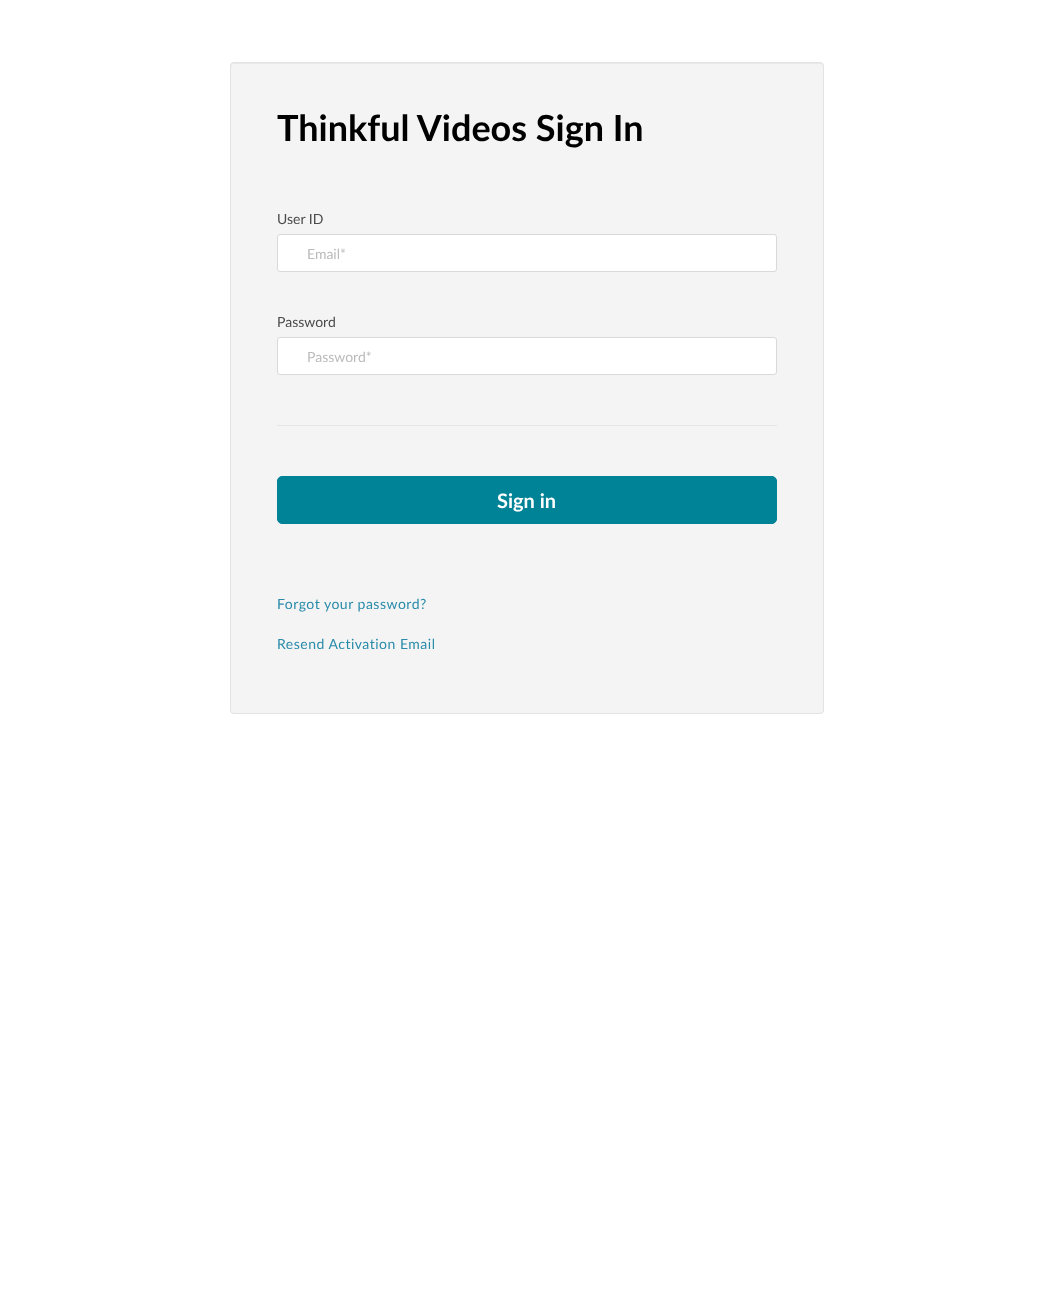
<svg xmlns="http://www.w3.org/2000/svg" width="1054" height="1300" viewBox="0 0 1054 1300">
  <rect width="100%" height="100%" fill="#ffffff"/>
  <rect x="230" y="62" width="594" height="652" rx="4" fill="#f4f4f4"/>
  <path d="M234 64H820C822 64 823 65 823 67V66C823 64 822 63 820 63H234C232 63 231 64 231 66V67C231 65 232 64 234 64Z" fill="#e8e8e8"/>
  <rect x="230.5" y="62.5" width="593" height="651" rx="3.5" fill="none" stroke="#e3e3e3"/>
  <text x="277" y="141" font-family="Lato" font-size="36" font-weight="bold" fill="#000000">Thinkful Videos Sign In</text>
  <text x="277" y="224" font-family="Lato" font-size="14" fill="#4a4a4a">User ID</text>
  <rect x="277.5" y="234.5" width="499" height="37" rx="2.5" fill="#ffffff" stroke="#d9d9d9"/>
  <text x="307" y="259" font-family="Lato" font-size="14" fill="#bbbbbb">Email*</text>
  <text x="277" y="327" font-family="Lato" font-size="14" fill="#4a4a4a">Password</text>
  <rect x="277.5" y="337.5" width="499" height="37" rx="2.5" fill="#ffffff" stroke="#d9d9d9"/>
  <text x="307" y="362" font-family="Lato" font-size="14" fill="#bbbbbb">Password*</text>
  <rect x="277" y="425" width="500" height="1" fill="#e5e5e5"/>
  <rect x="277.5" y="476.5" width="499" height="47" rx="4.5" fill="#008297" stroke="#008297"/>
  <text x="497" y="508" font-family="Lato" font-size="20" font-weight="bold" fill="#ffffff">Sign in</text>
  <text x="277" y="609" font-family="Lato" font-size="14" letter-spacing="0.5" fill="#298baa">Forgot your password?</text>
  <text x="277" y="649" font-family="Lato" font-size="14" letter-spacing="0.5" fill="#298baa">Resend Activation Email</text>
</svg>
